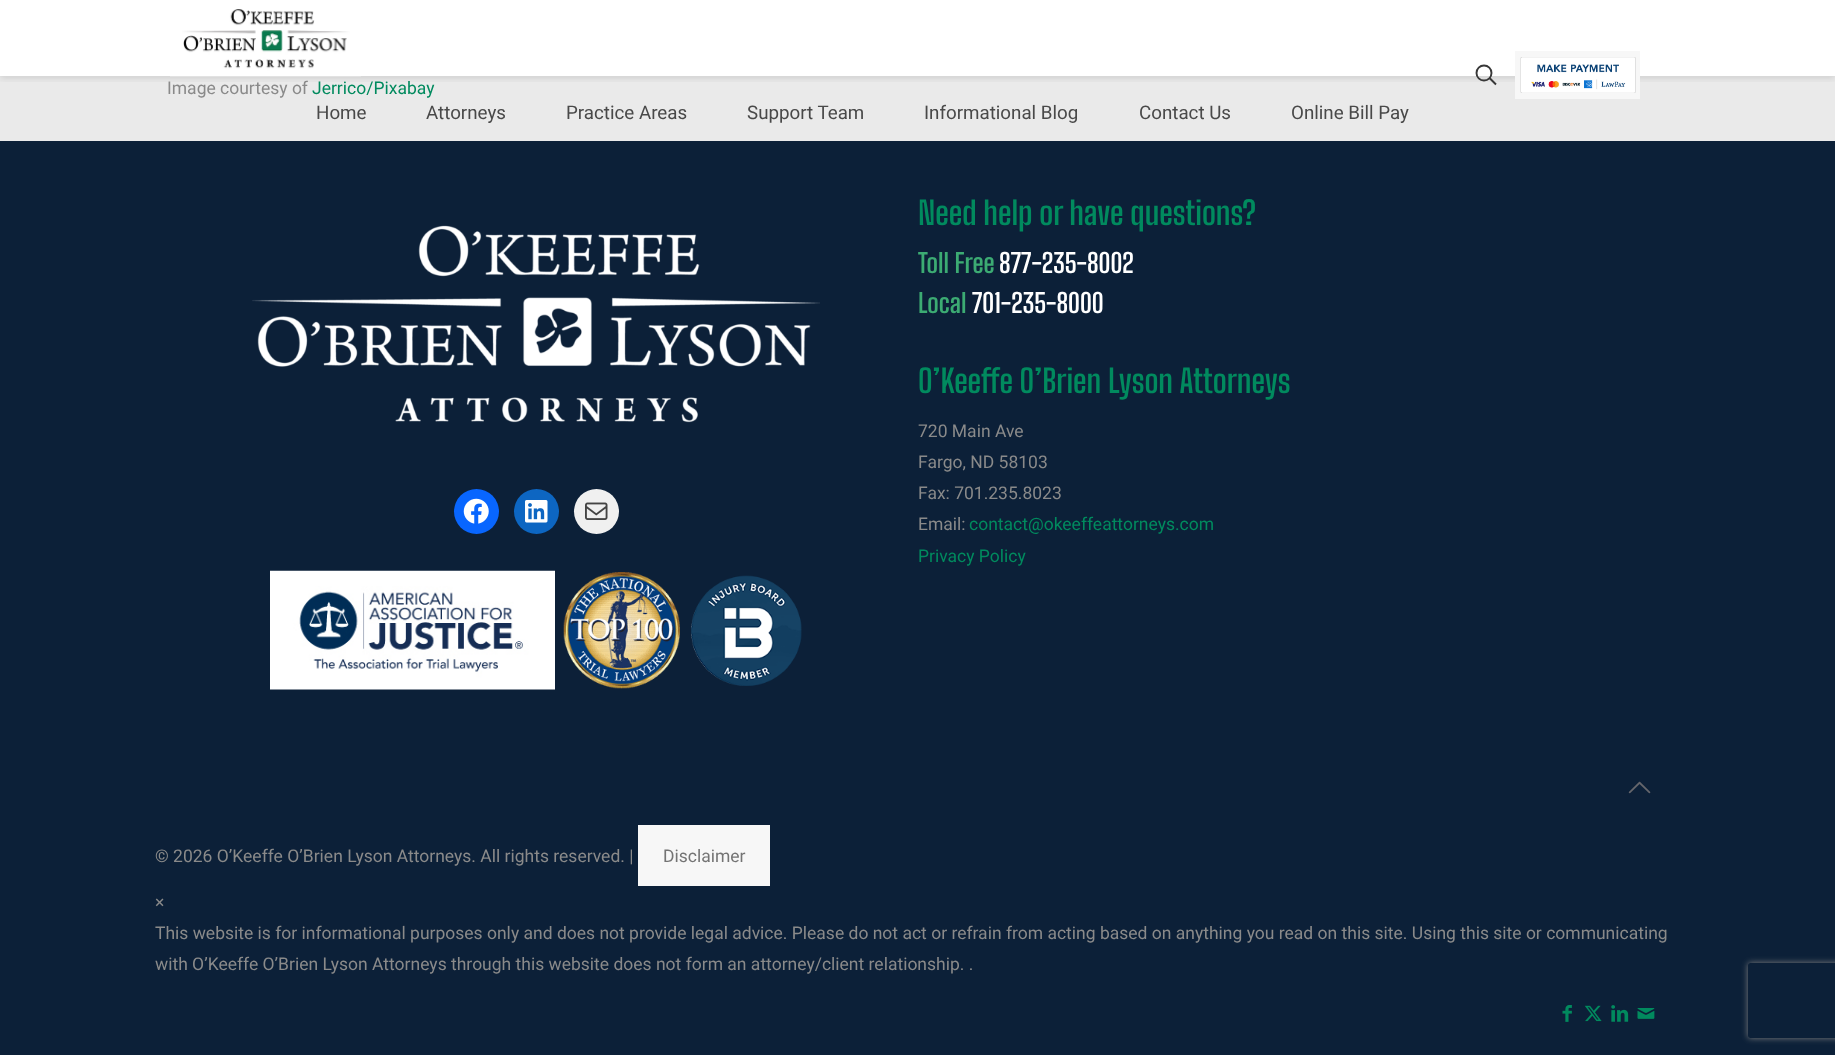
<svg xmlns="http://www.w3.org/2000/svg" width="1835" height="1055" viewBox="0 0 1835 1055">
  <defs>
    <clipPath id="clip1"><rect x="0" y="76" width="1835" height="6"/></clipPath>
    <filter id="blur1" x="-50%" y="-200%" width="200%" height="500%"><feGaussianBlur stdDeviation="3"/></filter>
    <clipPath id="clip2"><path d="M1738 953H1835V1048H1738ZM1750.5 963H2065.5C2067 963 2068 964 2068 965.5V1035.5C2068 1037 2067 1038 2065.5 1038H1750.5C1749 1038 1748 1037 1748 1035.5V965.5C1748 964 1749 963 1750.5 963Z" clip-rule="evenodd"/></clipPath>
  </defs>
  <rect width="100%" height="100%" fill="#eaeaea"/>
  <text x="167" y="94" font-family="Roboto" font-size="17.5" fill="#8a8a8a">Image courtesy of</text>
  <text x="312" y="94" font-family="Roboto" font-size="17.5" fill="#018a5e">Jerrico/Pixabay</text>
  <g clip-path="url(#clip1)">
    <rect x="0" y="3" width="1835" height="76" fill="#000000" fill-opacity="0.1" filter="url(#blur1)"/>
  </g>
  <rect x="0" y="0" width="1835" height="76" fill="#ffffff" fill-opacity="0.97"/>
  <circle cx="1484" cy="73" r="7.5" fill="none" stroke="#383838" stroke-width="1.9"/>
  <path d="M1489.5 78L1496 84.5" fill="none" stroke="#383838" stroke-width="1.9"/>
  <rect x="1515" y="51" width="125" height="48" fill="#f7f7f7"/>
  <image x="1520" y="57" width="116" height="36" href="img1.png"/>
  <image x="170" y="9" width="191" height="68" href="img2.png"/>
  <text x="316" y="119" font-family="Roboto" font-size="18.75" fill="#494949">Home</text>
  <text x="426" y="119" font-family="Roboto" font-size="18.75" fill="#494949">Attorneys</text>
  <text x="566" y="119" font-family="Roboto" font-size="18.75" fill="#494949">Practice Areas</text>
  <text x="747" y="119" font-family="Roboto" font-size="18.75" fill="#494949">Support Team</text>
  <text x="924" y="119" font-family="Roboto" font-size="18.75" fill="#494949">Informational Blog</text>
  <text x="1139" y="119" font-family="Roboto" font-size="18.75" fill="#494949">Contact Us</text>
  <text x="1291" y="119" font-family="Roboto" font-size="18.75" fill="#494949">Online Bill Pay</text>
  <rect x="0" y="141" width="1835" height="914" fill="#0c2038"/>
  <image x="252" y="225" width="568" height="198" href="img3.png"/>
  <circle cx="476.5" cy="511.5" r="22.5" fill="#0866ff"/>
  <image x="463" y="498" width="26" height="26" href="img4.png"/>
  <circle cx="536.5" cy="511.5" r="22.5" fill="#0d66c2"/>
  <image x="525" y="500" width="23" height="23" href="img5.png"/>
  <circle cx="596.5" cy="511.5" r="22.5" fill="#f0f0f0"/>
  <image x="585" y="502" width="23" height="18" href="img6.png"/>
  <image x="270" y="570" width="285" height="120" href="img7.png"/>
  <image x="563" y="572" width="117" height="117" href="img8.png"/>
  <image x="691" y="575" width="111" height="111" href="img9.png"/>
  <text x="918" y="225" font-family="Big Shoulders" font-size="32" font-weight="500" fill="#018a5e">Need help or have questions?</text>
  <text x="918" y="273" font-family="Big Shoulders" font-size="26.25" font-weight="500" fill="#3cab73">Toll Free</text>
  <text x="999" y="273" font-family="Big Shoulders" font-size="26.25" font-weight="500" fill="#ffffff">877-235-8002</text>
  <text x="918" y="313" font-family="Big Shoulders" font-size="26.25" font-weight="500" fill="#3cab73">Local</text>
  <text x="972" y="313" font-family="Big Shoulders" font-size="26.25" font-weight="500" fill="#ffffff">701-235-8000</text>
  <text x="918" y="393" font-family="Big Shoulders" font-size="32" font-weight="500" fill="#018a5e">O’Keeffe O’Brien Lyson Attorneys</text>
  <text x="918" y="437" font-family="Roboto" font-size="17.5" fill="#8a8a8a">720 Main Ave</text>
  <text x="918" y="468" font-family="Roboto" font-size="17.5" fill="#8a8a8a">Fargo, ND 58103</text>
  <text x="918" y="499" font-family="Roboto" font-size="17.5" fill="#8a8a8a">Fax: 701.235.8023</text>
  <text x="918" y="530" font-family="Roboto" font-size="17.5" fill="#8a8a8a">Email:</text>
  <text x="969" y="530" font-family="Roboto" font-size="17.5" fill="#018a5e">contact@okeeffeattorneys.com</text>
  <text x="918" y="562" font-family="Roboto" font-size="17.5" fill="#018a5e">Privacy Policy</text>
  <image x="1628" y="781" width="23" height="13" href="img10.png"/>
  <text x="155" y="862" font-family="Roboto" font-size="17.5" fill="#8a8a8a">© 2026 O’Keeffe O’Brien Lyson Attorneys. All rights reserved. |</text>
  <rect x="638" y="825" width="132" height="61" fill="#f7f7f7"/>
  <text x="663" y="862" font-family="Roboto" font-size="17.5" fill="#747474">Disclaimer</text>
  <text x="155" y="908" font-family="Roboto" font-size="17.5" fill="#8a8a8a">×</text>
  <text x="155" y="939" font-family="Roboto" font-size="17.5" fill="#8a8a8a">This website is for informational purposes only and does not provide legal advice. Please do not act or refrain from acting based on anything you read on this site. Using this site or communicating</text>
  <text x="155" y="970" font-family="Roboto" font-size="17.5" fill="#8a8a8a">with O’Keeffe O’Brien Lyson Attorneys through this website does not form an attorney/client relationship. .</text>
  <image x="1562" y="1005" width="10" height="17" href="img11.png"/>
  <image x="1584" y="1005" width="18" height="17" href="img12.png"/>
  <image x="1611" y="1005" width="18" height="17" href="img13.png"/>
  <image x="1637" y="1008" width="18" height="11" href="img14.png"/>
  <g clip-path="url(#clip2)">
    <rect x="1748" y="963" width="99" height="75" rx="2.5" fill="#808080" filter="url(#blur1)"/>
  </g>
</svg>
